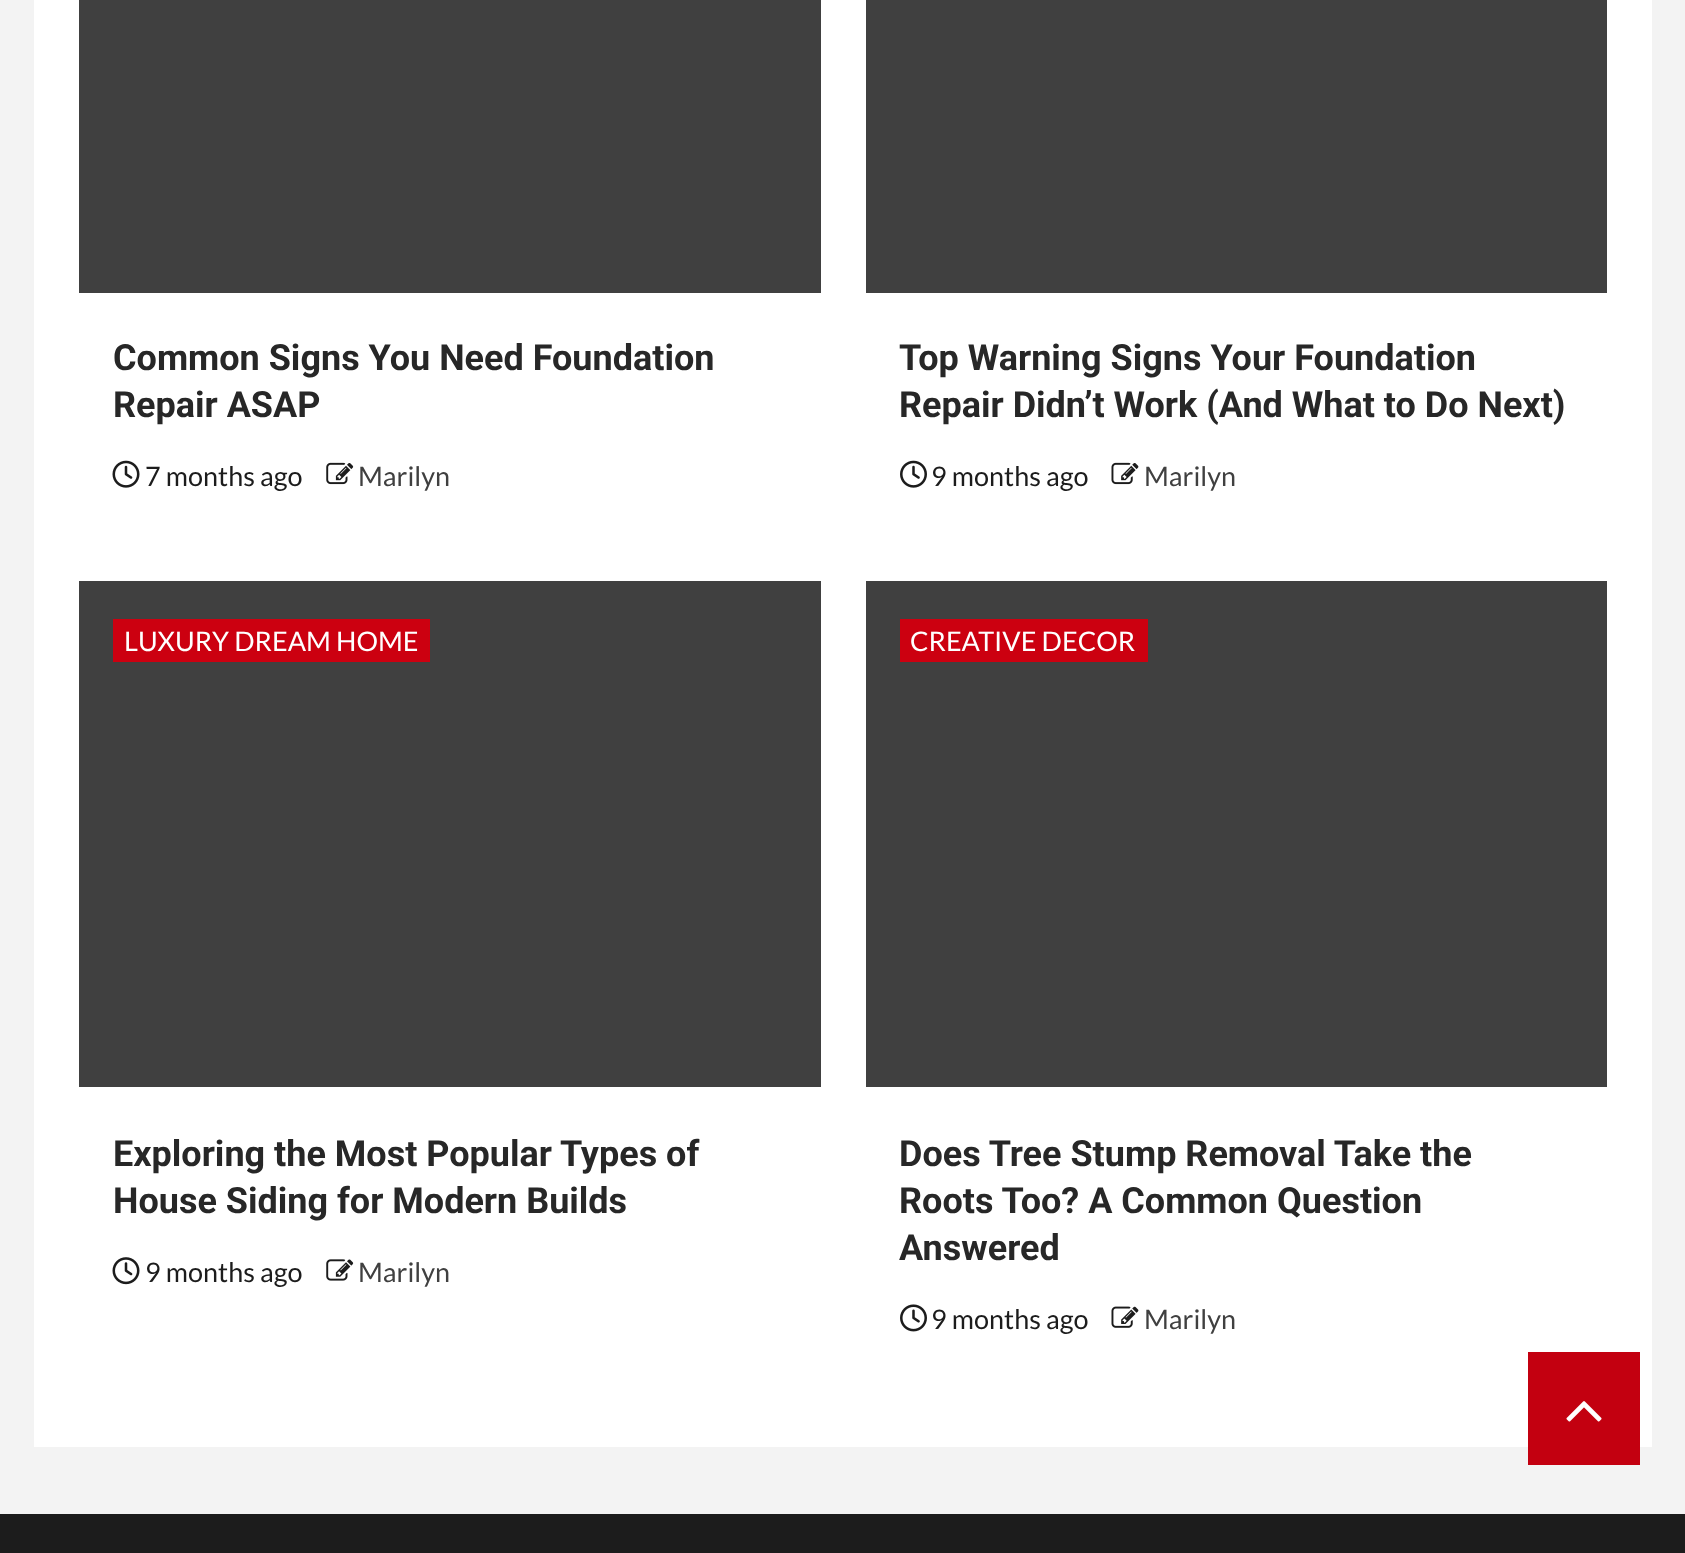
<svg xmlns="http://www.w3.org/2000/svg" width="1685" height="1553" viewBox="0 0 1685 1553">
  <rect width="100%" height="100%" fill="#f3f3f3"/>
  <rect x="34" y="0" width="1618" height="1447" fill="#ffffff"/>
  <rect x="79" y="0" width="742" height="293" fill="#404040"/>
  <text x="113" y="370" font-family="Roboto" font-size="36" font-weight="bold" fill="#272727">Common Signs You Need Foundation</text>
  <text x="113" y="417" font-family="Roboto" font-size="36" font-weight="bold" fill="#272727">Repair ASAP</text>
  <image x="112" y="460" width="28" height="28" href="img1.png"/>
  <text x="145" y="486" font-family="Lato" font-size="27" fill="#1c1c1c">7 months ago</text>
  <image x="326" y="462" width="28" height="23" href="img2.png"/>
  <text x="358" y="486" font-family="Lato" font-size="27" fill="#404040">Marilyn</text>
  <rect x="866" y="0" width="741" height="293" fill="#404040"/>
  <text x="899" y="370" font-family="Roboto" font-size="36" font-weight="bold" fill="#272727">Top Warning Signs Your Foundation</text>
  <text x="899" y="417" font-family="Roboto" font-size="36" font-weight="bold" fill="#272727">Repair Didn’t Work (And What to Do Next)</text>
  <image x="900" y="460" width="27" height="28" href="img3.png"/>
  <text x="931" y="486" font-family="Lato" font-size="27" fill="#1c1c1c">9 months ago</text>
  <image x="1111" y="462" width="28" height="23" href="img4.png"/>
  <text x="1144" y="486" font-family="Lato" font-size="27" fill="#404040">Marilyn</text>
  <rect x="79" y="581" width="742" height="506" fill="#404040"/>
  <rect x="113" y="619" width="317" height="43" fill="#cc0010"/>
  <text x="124" y="651" font-family="Lato" font-size="27" fill="#ffffff">LUXURY DREAM HOME</text>
  <text x="113" y="1166" font-family="Roboto" font-size="36" font-weight="bold" fill="#272727">Exploring the Most Popular Types of</text>
  <text x="113" y="1213" font-family="Roboto" font-size="36" font-weight="bold" fill="#272727">House Siding for Modern Builds</text>
  <image x="112" y="1257" width="28" height="28" href="img5.png"/>
  <text x="145" y="1282" font-family="Lato" font-size="27" fill="#1c1c1c">9 months ago</text>
  <image x="326" y="1259" width="28" height="22" href="img6.png"/>
  <text x="358" y="1282" font-family="Lato" font-size="27" fill="#404040">Marilyn</text>
  <rect x="866" y="581" width="741" height="506" fill="#404040"/>
  <rect x="900" y="619" width="248" height="43" fill="#cc0010"/>
  <text x="910" y="651" font-family="Lato" font-size="27" fill="#ffffff">CREATIVE DECOR</text>
  <text x="899" y="1166" font-family="Roboto" font-size="36" font-weight="bold" fill="#272727">Does Tree Stump Removal Take the</text>
  <text x="899" y="1213" font-family="Roboto" font-size="36" font-weight="bold" fill="#272727">Roots Too? A Common Question</text>
  <text x="899" y="1260" font-family="Roboto" font-size="36" font-weight="bold" fill="#272727">Answered</text>
  <image x="900" y="1304" width="27" height="28" href="img7.png"/>
  <text x="931" y="1329" font-family="Lato" font-size="27" fill="#1c1c1c">9 months ago</text>
  <image x="1111" y="1306" width="28" height="22" href="img8.png"/>
  <text x="1144" y="1329" font-family="Lato" font-size="27" fill="#404040">Marilyn</text>
  <rect x="0" y="1514" width="1685" height="39" fill="#1c1c1c"/>
  <rect x="1528" y="1352" width="112" height="113" fill="#c30010"/>
  <image x="1566" y="1401" width="36" height="21" href="img9.png"/>
</svg>
